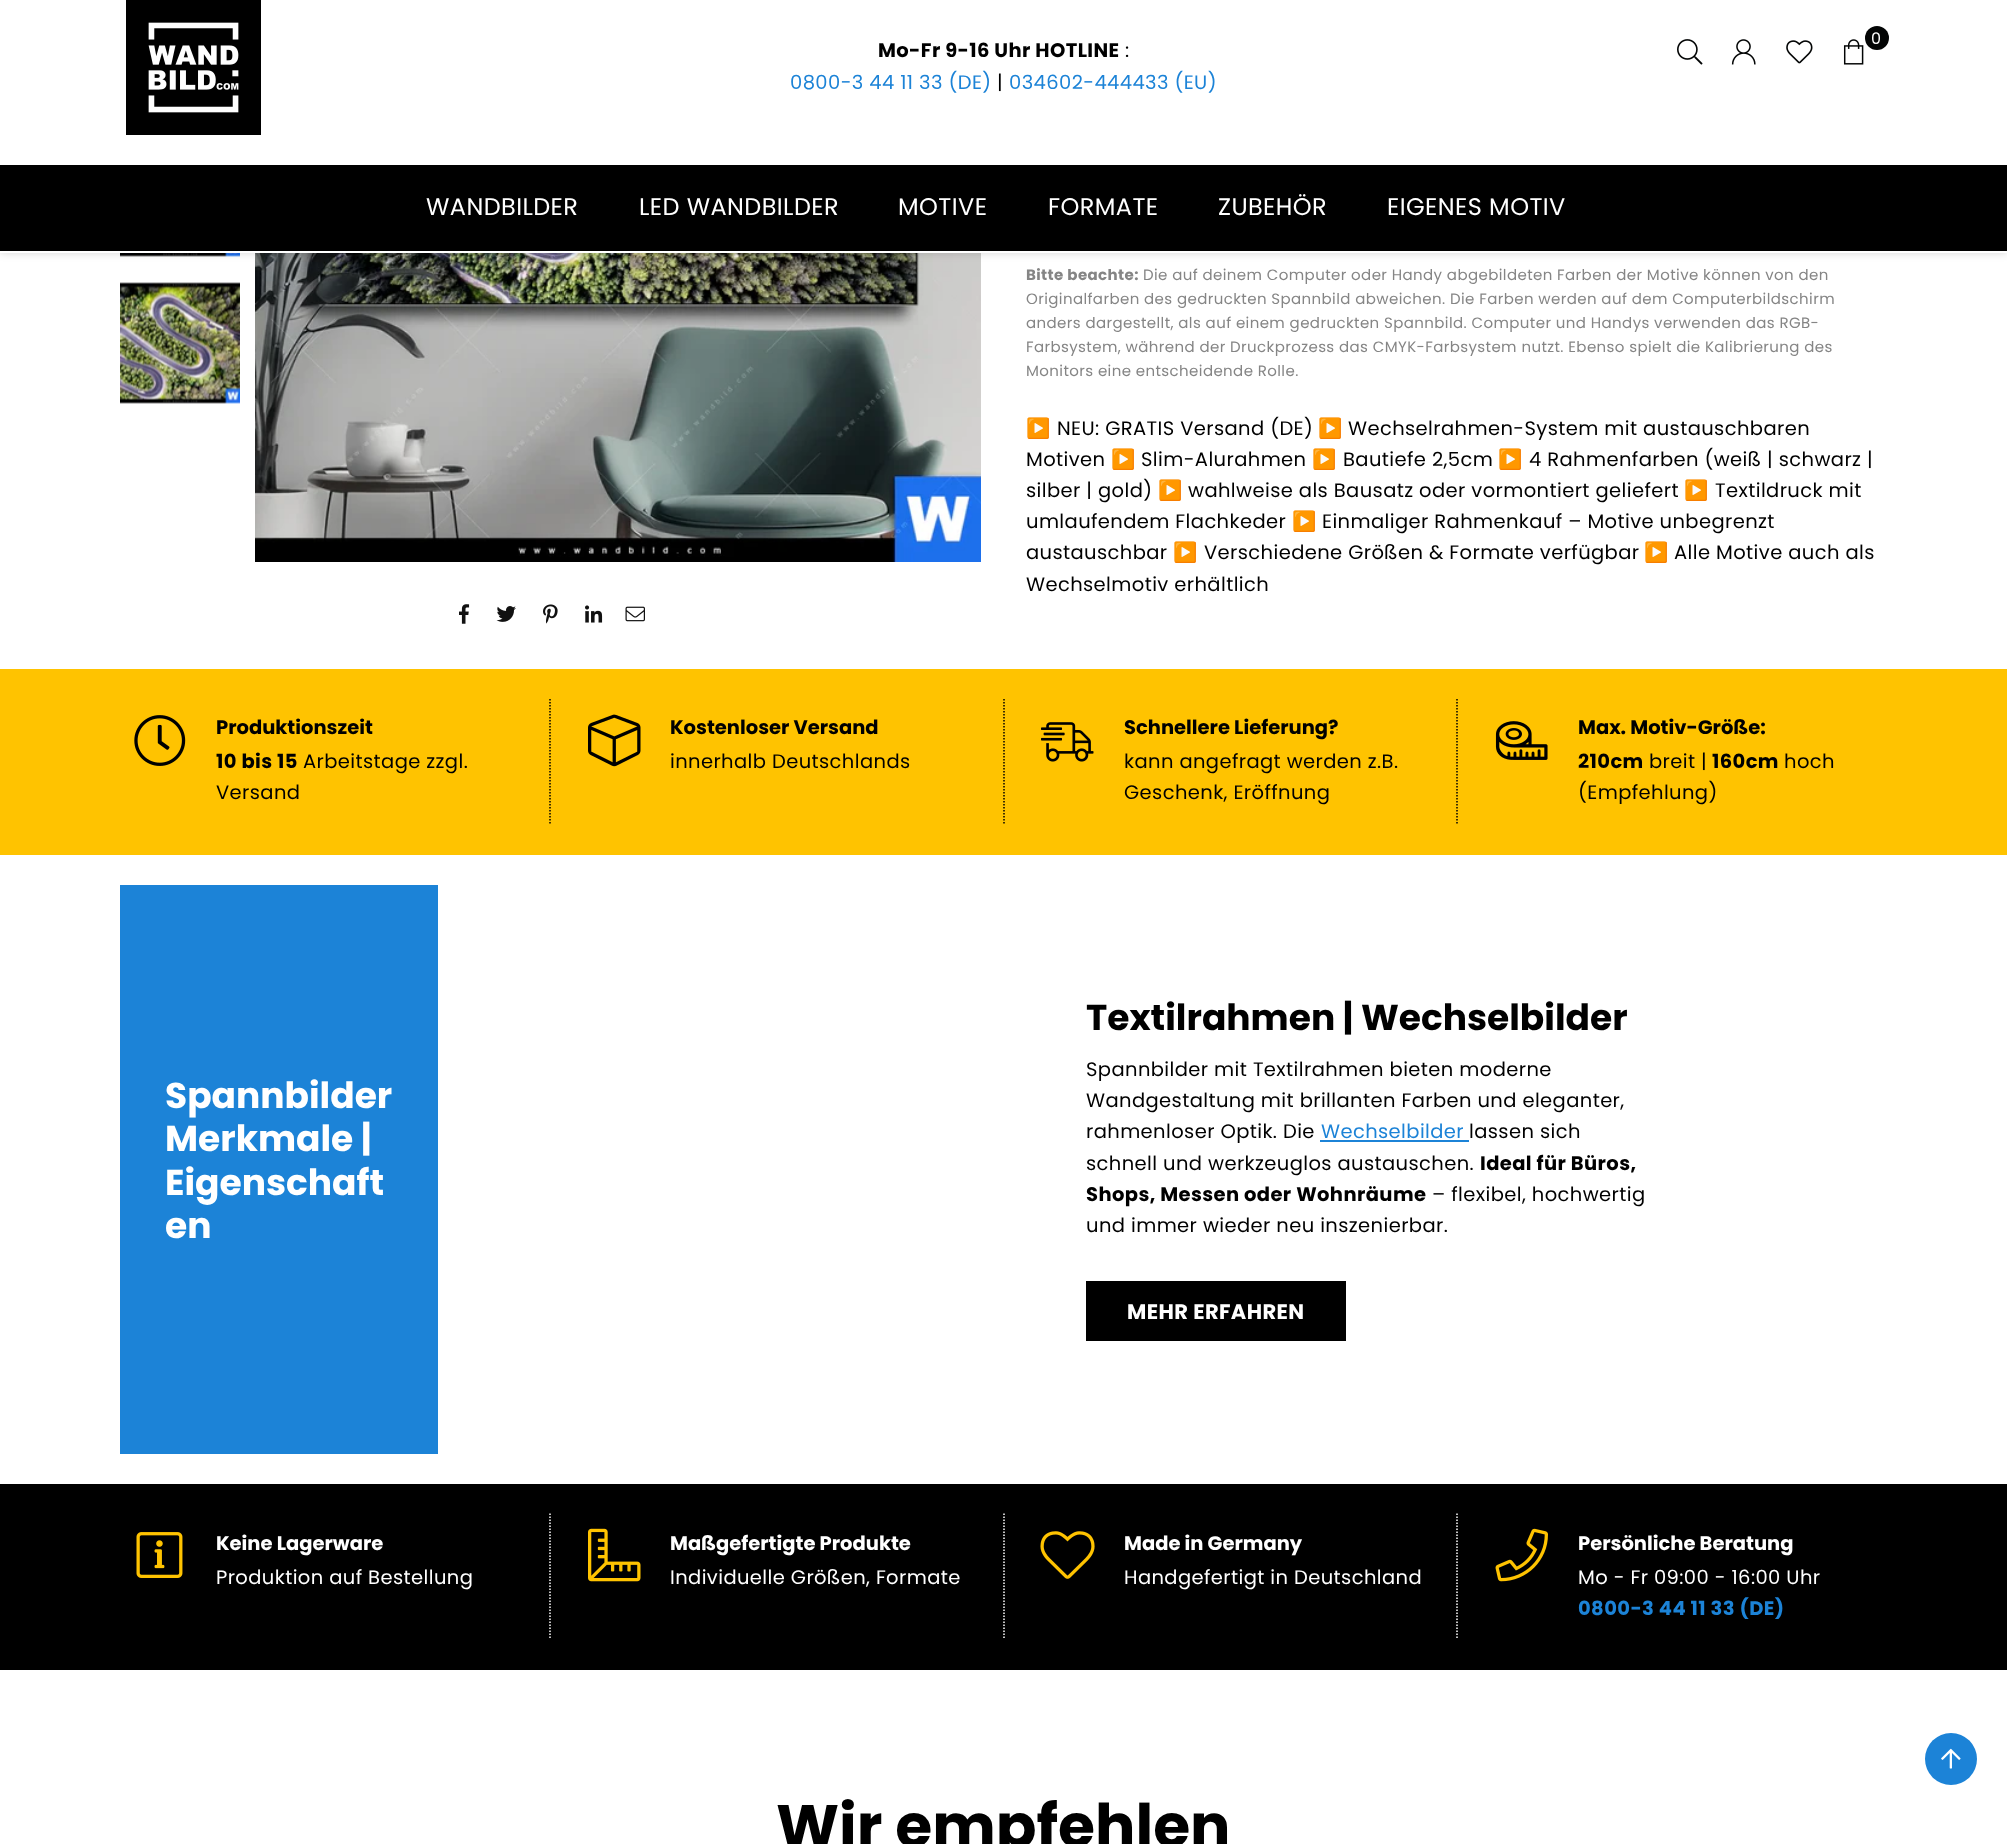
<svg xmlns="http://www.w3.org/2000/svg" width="2007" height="1844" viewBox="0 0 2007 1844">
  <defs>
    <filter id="blur1" x="-50%" y="-200%" width="200%" height="500%"><feGaussianBlur stdDeviation="5"/></filter>
  </defs>
  <rect width="100%" height="100%" fill="#ffffff"/>
  <image x="120" y="253" width="120" height="4" href="img6.png"/>
  <image x="255" y="253" width="726" height="309" href="img8.png"/>
  <rect x="0" y="0" width="2007" height="252" fill="#000000" fill-opacity="0.2" filter="url(#blur1)"/>
  <rect x="0" y="0" width="2007" height="165" fill="#ffffff"/>
  <rect x="0" y="251" width="2007" height="2" fill="#ffffff"/>
  <image x="126" y="0" width="135" height="135" href="img1.png"/>
  <circle cx="1877" cy="38" r="12" fill="#030505"/>
  <text x="1871" y="44" font-family="Poppins" font-size="16" letter-spacing="0.4" fill="#ffffff">0</text>
  <image x="1843" y="39" width="21" height="26" href="img2.png"/>
  <image x="1677" y="39" width="26" height="26" href="img3.png"/>
  <image x="1731" y="39" width="25" height="26" href="img4.png"/>
  <image x="1786" y="40" width="27" height="24" href="img5.png"/>
  <text x="878" y="57" font-family="Poppins" font-size="19.5" font-weight="bold" letter-spacing="0.4" fill="#000000">Mo-Fr 9-16 Uhr HOTLINE</text>
  <text x="1125" y="57" font-family="Poppins" font-size="19.5" letter-spacing="0.4" fill="#000000">:</text>
  <text x="790" y="89" font-family="Poppins" font-size="19.5" letter-spacing="0.4" fill="#1c83d7">0800-3 44 11 33 (DE)</text>
  <text x="997" y="89" font-family="Poppins" font-size="19.5" letter-spacing="0.4" fill="#000000">|</text>
  <text x="1009" y="89" font-family="Poppins" font-size="19.5" letter-spacing="0.4" fill="#1c83d7">034602-444433 (EU)</text>
  <rect x="0" y="165" width="2007" height="86" fill="#000000"/>
  <text x="426" y="215" font-family="Poppins" font-size="24" letter-spacing="0.4" fill="#ffffff">WANDBILDER</text>
  <text x="639" y="215" font-family="Poppins" font-size="24" letter-spacing="0.4" fill="#ffffff">LED WANDBILDER</text>
  <text x="898" y="215" font-family="Poppins" font-size="24" letter-spacing="0.4" fill="#ffffff">MOTIVE</text>
  <text x="1048" y="215" font-family="Poppins" font-size="24" letter-spacing="0.4" fill="#ffffff">FORMATE</text>
  <text x="1218" y="215" font-family="Poppins" font-size="24" letter-spacing="0.4" fill="#ffffff">ZUBEHÖR</text>
  <text x="1387" y="215" font-family="Poppins" font-size="24" letter-spacing="0.4" fill="#ffffff">EIGENES MOTIV</text>
  <image x="120" y="282" width="120" height="122" href="img7.png"/>
  <image x="459" y="604" width="11" height="20" href="img9.png"/>
  <image x="496" y="606" width="20" height="16" href="img10.png"/>
  <image x="543" y="604" width="15" height="20" href="img11.png"/>
  <image x="585" y="605" width="18" height="18" href="img12.png"/>
  <image x="625" y="606" width="20" height="16" href="img13.png"/>
  <text x="1026" y="280" font-family="Poppins" font-size="15" font-weight="bold" letter-spacing="0.4" fill="#858585">Bitte beachte:</text>
  <text x="1143" y="280" font-family="Poppins" font-size="15" letter-spacing="0.4" fill="#858585">Die auf deinem Computer oder Handy abgebildeten Farben der Motive können von den</text>
  <text x="1026" y="304" font-family="Poppins" font-size="15" letter-spacing="0.4" fill="#858585">Originalfarben des gedruckten Spannbild abweichen. Die Farben werden auf dem Computerbildschirm</text>
  <text x="1026" y="328" font-family="Poppins" font-size="15" letter-spacing="0.4" fill="#858585">anders dargestellt, als auf einem gedruckten Spannbild. Computer und Handys verwenden das RGB-</text>
  <text x="1026" y="352" font-family="Poppins" font-size="15" letter-spacing="0.4" fill="#858585">Farbsystem, während der Druckprozess das CMYK-Farbsystem nutzt. Ebenso spielt die Kalibrierung des</text>
  <text x="1026" y="376" font-family="Poppins" font-size="15" letter-spacing="0.4" fill="#858585">Monitors eine entscheidende Rolle.</text>
  <text x="1026" y="435" font-family="Noto Color Emoji" font-size="19.5" letter-spacing="0.4" fill="#000000">▶️</text>
  <text x="1057" y="435" font-family="Poppins" font-size="19.5" letter-spacing="0.4" fill="#000000">NEU: GRATIS Versand (DE)</text>
  <text x="1318" y="435" font-family="Noto Color Emoji" font-size="19.5" letter-spacing="0.4" fill="#000000">▶️</text>
  <text x="1348" y="435" font-family="Poppins" font-size="19.5" letter-spacing="0.4" fill="#000000">Wechselrahmen-System mit austauschbaren</text>
  <text x="1026" y="466" font-family="Poppins" font-size="19.5" letter-spacing="0.4" fill="#000000">Motiven</text>
  <text x="1111" y="466" font-family="Noto Color Emoji" font-size="19.5" letter-spacing="0.4" fill="#000000">▶️</text>
  <text x="1141" y="466" font-family="Poppins" font-size="19.5" letter-spacing="0.4" fill="#000000">Slim-Alurahmen</text>
  <text x="1312" y="466" font-family="Noto Color Emoji" font-size="19.5" letter-spacing="0.4" fill="#000000">▶️</text>
  <text x="1343" y="466" font-family="Poppins" font-size="19.5" letter-spacing="0.4" fill="#000000">Bautiefe 2,5cm</text>
  <text x="1498" y="466" font-family="Noto Color Emoji" font-size="19.5" letter-spacing="0.4" fill="#000000">▶️</text>
  <text x="1529" y="466" font-family="Poppins" font-size="19.5" letter-spacing="0.4" fill="#000000">4 Rahmenfarben (weiß | schwarz |</text>
  <text x="1026" y="497" font-family="Poppins" font-size="19.5" letter-spacing="0.4" fill="#000000">silber | gold)</text>
  <text x="1158" y="497" font-family="Noto Color Emoji" font-size="19.5" letter-spacing="0.4" fill="#000000">▶️</text>
  <text x="1188" y="497" font-family="Poppins" font-size="19.5" letter-spacing="0.4" fill="#000000">wahlweise als Bausatz oder vormontiert geliefert</text>
  <text x="1684" y="497" font-family="Noto Color Emoji" font-size="19.5" letter-spacing="0.4" fill="#000000">▶️</text>
  <text x="1715" y="497" font-family="Poppins" font-size="19.5" letter-spacing="0.4" fill="#000000">Textildruck mit</text>
  <text x="1026" y="528" font-family="Poppins" font-size="19.5" letter-spacing="0.4" fill="#000000">umlaufendem Flachkeder</text>
  <text x="1292" y="528" font-family="Noto Color Emoji" font-size="19.5" letter-spacing="0.4" fill="#000000">▶️</text>
  <text x="1322" y="528" font-family="Poppins" font-size="19.5" letter-spacing="0.4" fill="#000000">Einmaliger Rahmenkauf – Motive unbegrenzt</text>
  <text x="1026" y="559" font-family="Poppins" font-size="19.5" letter-spacing="0.4" fill="#000000">austauschbar</text>
  <text x="1173" y="559" font-family="Noto Color Emoji" font-size="19.5" letter-spacing="0.4" fill="#000000">▶️</text>
  <text x="1204" y="559" font-family="Poppins" font-size="19.5" letter-spacing="0.4" fill="#000000">Verschiedene Größen &amp; Formate verfügbar</text>
  <text x="1644" y="559" font-family="Noto Color Emoji" font-size="19.5" letter-spacing="0.4" fill="#000000">▶️</text>
  <text x="1674" y="559" font-family="Poppins" font-size="19.5" letter-spacing="0.4" fill="#000000">Alle Motive auch als</text>
  <text x="1026" y="591" font-family="Poppins" font-size="19.5" letter-spacing="0.4" fill="#000000">Wechselmotiv erhältlich</text>
  <rect x="0" y="669" width="2007" height="186" fill="#ffc300"/>
  <image x="134" y="715" width="52" height="51" href="img14.png"/>
  <text x="216" y="734" font-family="Poppins" font-size="19.5" font-weight="bold" fill="#000000">Produktionszeit</text>
  <text x="216" y="768" font-family="Poppins" font-size="19.5" font-weight="bold" letter-spacing="0.4" fill="#000000">10 bis 15</text>
  <text x="303" y="768" font-family="Poppins" font-size="19.5" letter-spacing="0.4" fill="#000000">Arbeitstage zzgl.</text>
  <text x="216" y="799" font-family="Poppins" font-size="19.5" letter-spacing="0.4" fill="#000000">Versand</text>
  <path d="M550 699V825" fill="none" stroke="#000000" stroke-width="1.5" stroke-dasharray="1.5 1.5"/>
  <image x="588" y="714" width="53" height="53" href="img15.png"/>
  <text x="670" y="734" font-family="Poppins" font-size="19.5" font-weight="bold" fill="#000000">Kostenloser Versand</text>
  <text x="670" y="768" font-family="Poppins" font-size="19.5" letter-spacing="0.4" fill="#000000">innerhalb Deutschlands</text>
  <path d="M1004 699V825" fill="none" stroke="#000000" stroke-width="1.5" stroke-dasharray="1.5 1.5"/>
  <image x="1041" y="722" width="53" height="40" href="img16.png"/>
  <text x="1124" y="734" font-family="Poppins" font-size="19.5" font-weight="bold" fill="#000000">Schnellere Lieferung?</text>
  <text x="1124" y="768" font-family="Poppins" font-size="19.5" letter-spacing="0.4" fill="#000000">kann angefragt werden z.B.</text>
  <text x="1124" y="799" font-family="Poppins" font-size="19.5" letter-spacing="0.4" fill="#000000">Geschenk, Eröffnung</text>
  <path d="M1457 699V825" fill="none" stroke="#000000" stroke-width="1.5" stroke-dasharray="1.5 1.5"/>
  <image x="1495" y="721" width="53" height="39" href="img17.png"/>
  <text x="1578" y="734" font-family="Poppins" font-size="19.5" font-weight="bold" fill="#000000">Max. Motiv-Größe:</text>
  <text x="1578" y="768" font-family="Poppins" font-size="19.5" font-weight="bold" letter-spacing="0.4" fill="#000000">210cm</text>
  <text x="1649" y="768" font-family="Poppins" font-size="19.5" letter-spacing="0.4" fill="#000000">breit |</text>
  <text x="1712" y="768" font-family="Poppins" font-size="19.5" font-weight="bold" letter-spacing="0.4" fill="#000000">160cm</text>
  <text x="1784" y="768" font-family="Poppins" font-size="19.5" letter-spacing="0.4" fill="#000000">hoch</text>
  <text x="1578" y="799" font-family="Poppins" font-size="19.5" letter-spacing="0.4" fill="#000000">(Empfehlung)</text>
  <rect x="120" y="885" width="318" height="569" fill="#1c83d7"/>
  <text x="165" y="1108" font-family="Poppins" font-size="36" font-weight="bold" fill="#ffffff">Spannbilder</text>
  <text x="165" y="1151" font-family="Poppins" font-size="36" font-weight="bold" fill="#ffffff">Merkmale |</text>
  <text x="165" y="1195" font-family="Poppins" font-size="36" font-weight="bold" fill="#ffffff">Eigenschaft</text>
  <text x="165" y="1238" font-family="Poppins" font-size="36" font-weight="bold" fill="#ffffff">en</text>
  <text x="1086" y="1030" font-family="Poppins" font-size="36" font-weight="bold" fill="#000000">Textilrahmen | Wechselbilder</text>
  <text x="1086" y="1076" font-family="Poppins" font-size="19.5" letter-spacing="0.4" fill="#000000">Spannbilder mit Textilrahmen bieten moderne</text>
  <text x="1086" y="1107" font-family="Poppins" font-size="19.5" letter-spacing="0.4" fill="#000000">Wandgestaltung mit brillanten Farben und eleganter,</text>
  <text x="1086" y="1138" font-family="Poppins" font-size="19.5" letter-spacing="0.4" fill="#000000">rahmenloser Optik. Die</text>
  <text x="1321" y="1138" font-family="Poppins" font-size="19.5" letter-spacing="0.4" fill="#1c83d7">Wechselbilder</text>
  <rect x="1320" y="1140" width="149" height="2" fill="#1c83d7"/>
  <text x="1469" y="1138" font-family="Poppins" font-size="19.5" letter-spacing="0.4" fill="#000000">lassen sich</text>
  <text x="1086" y="1170" font-family="Poppins" font-size="19.5" letter-spacing="0.4" fill="#000000">schnell und werkzeuglos austauschen.</text>
  <text x="1480" y="1170" font-family="Poppins" font-size="19.5" font-weight="bold" letter-spacing="0.4" fill="#000000">Ideal für Büros,</text>
  <text x="1086" y="1201" font-family="Poppins" font-size="19.5" font-weight="bold" letter-spacing="0.4" fill="#000000">Shops, Messen oder Wohnräume</text>
  <text x="1432" y="1201" font-family="Poppins" font-size="19.5" letter-spacing="0.4" fill="#000000">– flexibel, hochwertig</text>
  <text x="1086" y="1232" font-family="Poppins" font-size="19.5" letter-spacing="0.4" fill="#000000">und immer wieder neu inszenierbar.</text>
  <rect x="1086" y="1281" width="260" height="60" fill="#000000"/>
  <text x="1127" y="1319" font-family="Poppins" font-size="21" font-weight="bold" letter-spacing="0.4" fill="#ffffff">MEHR ERFAHREN</text>
  <rect x="0" y="1484" width="2007" height="186" fill="#000000"/>
  <image x="136" y="1532" width="47" height="46" href="img18.png"/>
  <text x="216" y="1550" font-family="Poppins" font-size="19.5" font-weight="bold" fill="#ffffff">Keine Lagerware</text>
  <text x="216" y="1584" font-family="Poppins" font-size="19.5" letter-spacing="0.4" fill="#ffffff">Produktion auf Bestellung</text>
  <path d="M550 1513.5V1639.5" fill="none" stroke="#ffffff" stroke-width="1.5" stroke-dasharray="1.5 1.5"/>
  <image x="588" y="1528" width="53" height="54" href="img19.png"/>
  <text x="670" y="1550" font-family="Poppins" font-size="19.5" font-weight="bold" fill="#ffffff">Maßgefertigte Produkte</text>
  <text x="670" y="1584" font-family="Poppins" font-size="19.5" letter-spacing="0.4" fill="#ffffff">Individuelle Größen, Formate</text>
  <path d="M1004 1513.5V1639.5" fill="none" stroke="#ffffff" stroke-width="1.5" stroke-dasharray="1.5 1.5"/>
  <image x="1040" y="1531" width="55" height="48" href="img20.png"/>
  <text x="1124" y="1550" font-family="Poppins" font-size="19.5" font-weight="bold" fill="#ffffff">Made in Germany</text>
  <text x="1124" y="1584" font-family="Poppins" font-size="19.5" letter-spacing="0.4" fill="#ffffff">Handgefertigt in Deutschland</text>
  <path d="M1457 1513.5V1639.5" fill="none" stroke="#ffffff" stroke-width="1.5" stroke-dasharray="1.5 1.5"/>
  <image x="1495" y="1528" width="53" height="54" href="img21.png"/>
  <text x="1578" y="1550" font-family="Poppins" font-size="19.5" font-weight="bold" fill="#ffffff">Persönliche Beratung</text>
  <text x="1578" y="1584" font-family="Poppins" font-size="19.5" letter-spacing="0.4" fill="#ffffff">Mo - Fr 09:00 - 16:00 Uhr</text>
  <text x="1578" y="1615" font-family="Poppins" font-size="19.5" font-weight="bold" letter-spacing="0.4" fill="#1c83d7">0800-3 44 11 33 (DE)</text>
  <text x="776" y="1847" font-family="Poppins" font-size="60" font-weight="bold" fill="#000000">Wir empfehlen</text>
  <circle cx="1951" cy="1759" r="26" fill="#1c83d7"/>
  <image x="1941" y="1748" width="20" height="21" href="img22.png"/>
</svg>
